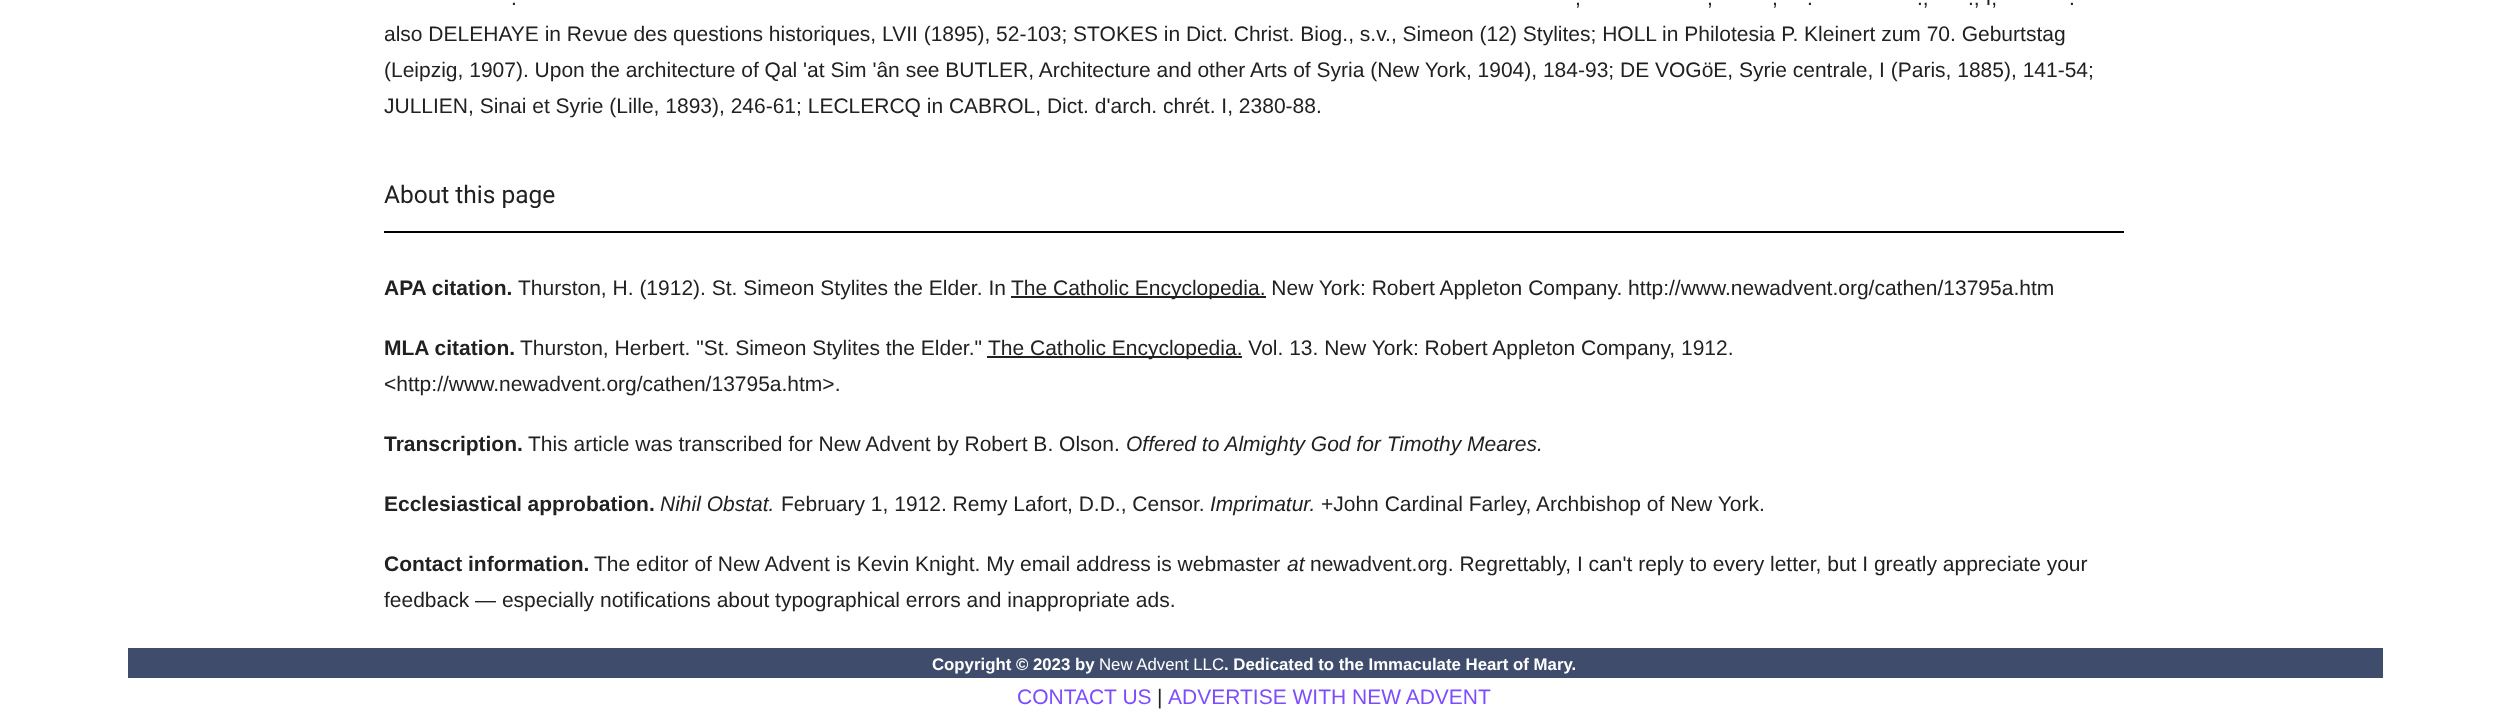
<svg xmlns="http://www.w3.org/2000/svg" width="2508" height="714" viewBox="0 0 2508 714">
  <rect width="100%" height="100%" fill="#ffffff"/>
  <text x="511" y="5" font-family="Liberation Sans" font-size="21" fill="#212121">.</text>
  <text x="1575" y="5" font-family="Liberation Sans" font-size="21" fill="#212121">,</text>
  <text x="1707" y="5" font-family="Liberation Sans" font-size="21" fill="#212121">,</text>
  <text x="1772" y="5" font-family="Liberation Sans" font-size="21" fill="#212121">,</text>
  <text x="1807" y="5" font-family="Liberation Sans" font-size="21" fill="#212121">.</text>
  <text x="1917" y="5" font-family="Liberation Sans" font-size="21" fill="#212121">.,</text>
  <text x="1968" y="5" font-family="Liberation Sans" font-size="21" fill="#212121">., I,</text>
  <text x="2069" y="5" font-family="Liberation Sans" font-size="21" fill="#212121">.</text>
  <text x="384" y="41" font-family="Liberation Sans" font-size="21" fill="#212121">also DELEHAYE in Revue des questions historiques, LVII (1895), 52-103; STOKES in Dict. Christ. Biog., s.v., Simeon (12) Stylites; HOLL in Philotesia P. Kleinert zum 70. Geburtstag</text>
  <text x="384" y="77" font-family="Liberation Sans" font-size="21" fill="#212121">(Leipzig, 1907). Upon the architecture of Qal 'at Sim 'ân see BUTLER, Architecture and other Arts of Syria (New York, 1904), 184-93; DE VOGöE, Syrie centrale, I (Paris, 1885), 141-54;</text>
  <text x="384" y="113" font-family="Liberation Sans" font-size="21" fill="#212121">JULLIEN, Sinai et Syrie (Lille, 1893), 246-61; LECLERCQ in CABROL, Dict. d'arch. chrét. I, 2380-88.</text>
  <rect x="384" y="231" width="1740" height="2" fill="#000000"/>
  <text x="384" y="203" font-family="Roboto" font-size="24.5" fill="#212121">About this page</text>
  <text x="384" y="295" font-family="Liberation Sans" font-size="21" font-weight="bold" fill="#212121">APA citation.</text>
  <text x="518" y="295" font-family="Liberation Sans" font-size="21" fill="#212121">Thurston, H. (1912). St. Simeon Stylites the Elder. In</text>
  <rect x="1011" y="296" width="255" height="2" fill="#212121"/>
  <text x="1011" y="295" font-family="Liberation Sans" font-size="21" fill="#212121">The Catholic Encyclopedia. New York: Robert Appleton Company. http://www.newadvent.org/cathen/13795a.htm</text>
  <text x="384" y="355" font-family="Liberation Sans" font-size="21" font-weight="bold" fill="#212121">MLA citation.</text>
  <text x="520" y="355" font-family="Liberation Sans" font-size="21" fill="#212121">Thurston, Herbert. "St. Simeon Stylites the Elder."</text>
  <rect x="987" y="356" width="255" height="2" fill="#212121"/>
  <text x="988" y="355" font-family="Liberation Sans" font-size="21" fill="#212121">The Catholic Encyclopedia. Vol. 13. New York: Robert Appleton Company, 1912.</text>
  <text x="384" y="391" font-family="Liberation Sans" font-size="21" fill="#212121">&lt;http://www.newadvent.org/cathen/13795a.htm&gt;.</text>
  <text x="384" y="451" font-family="Liberation Sans" font-size="21" font-weight="bold" fill="#212121">Transcription.</text>
  <text x="528" y="451" font-family="Liberation Sans" font-size="21" fill="#212121">This article was transcribed for New Advent by Robert B. Olson.</text>
  <text x="1126" y="451" font-family="Liberation Sans" font-size="21" font-style="italic" fill="#212121">Offered to Almighty God for Timothy Meares.</text>
  <text x="384" y="511" font-family="Liberation Sans" font-size="21" font-weight="bold" fill="#212121">Ecclesiastical approbation.</text>
  <text x="660" y="511" font-family="Liberation Sans" font-size="21" font-style="italic" fill="#212121">Nihil Obstat.</text>
  <text x="781" y="511" font-family="Liberation Sans" font-size="21" fill="#212121">February 1, 1912. Remy Lafort, D.D., Censor.</text>
  <text x="1210" y="511" font-family="Liberation Sans" font-size="21" font-style="italic" fill="#212121">Imprimatur.</text>
  <text x="1321" y="511" font-family="Liberation Sans" font-size="21" fill="#212121">+John Cardinal Farley, Archbishop of New York.</text>
  <text x="384" y="571" font-family="Liberation Sans" font-size="21" font-weight="bold" fill="#212121">Contact information.</text>
  <text x="594" y="571" font-family="Liberation Sans" font-size="21" fill="#212121">The editor of New Advent is Kevin Knight. My email address is webmaster</text>
  <text x="1287" y="571" font-family="Liberation Sans" font-size="21" font-style="italic" fill="#212121">at</text>
  <text x="1310" y="571" font-family="Liberation Sans" font-size="21" fill="#212121">newadvent.org. Regrettably, I can't reply to every letter, but I greatly appreciate your</text>
  <text x="384" y="607" font-family="Liberation Sans" font-size="21" fill="#212121">feedback — especially notifications about typographical errors and inappropriate ads.</text>
  <rect x="128" y="648" width="2255" height="30" fill="#3f4c6b"/>
  <text x="932" y="670" font-family="Liberation Sans" font-size="16.8" font-weight="bold" fill="#ffffff">Copyright © 2023 by</text>
  <text x="1099" y="670" font-family="Liberation Sans" font-size="16.8" fill="#ffffff">New Advent LLC</text>
  <text x="1224" y="670" font-family="Liberation Sans" font-size="16.8" font-weight="bold" fill="#ffffff">. Dedicated to the Immaculate Heart of Mary.</text>
  <text x="1017" y="704" font-family="Liberation Sans" font-size="21" fill="#7c4dff">CONTACT US</text>
  <text x="1157" y="704" font-family="Liberation Sans" font-size="21" fill="#212121">|</text>
  <text x="1168" y="704" font-family="Liberation Sans" font-size="21" fill="#7c4dff">ADVERTISE WITH NEW ADVENT</text>
</svg>
